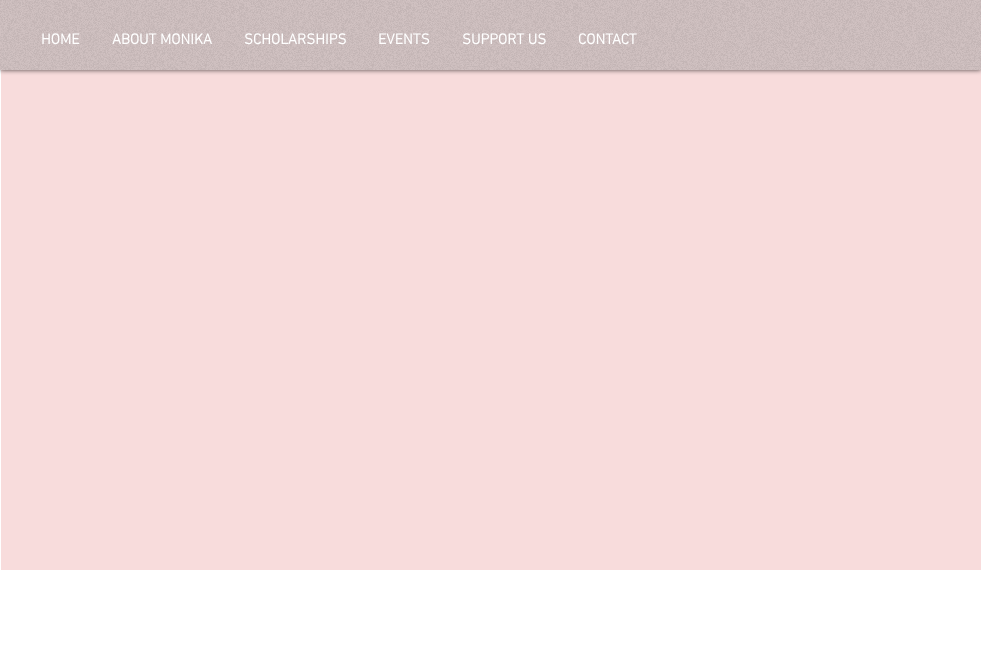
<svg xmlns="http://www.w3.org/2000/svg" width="981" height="658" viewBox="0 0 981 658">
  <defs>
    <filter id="blur1" x="-50%" y="-200%" width="200%" height="500%"><feGaussianBlur stdDeviation="2.5"/></filter>
  </defs>
  <rect width="100%" height="100%" fill="#ffffff"/>
  <rect x="1" y="70" width="980" height="500" fill="#f8dcdc"/>
  <rect x="0" y="0" width="981" height="70" fill="#000000" fill-opacity="0.7" filter="url(#blur1)"/>
  <rect x="0" y="0" width="981" height="70" fill="#d0c1c1"/>
  <image x="0" y="0" width="981" height="70" href="img1.png"/>
  <text x="41" y="44" font-family="'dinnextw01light'" font-size="15" font-weight="bold" fill="#ffffff">HOME</text>
  <text x="112" y="44" font-family="'dinnextw01light'" font-size="15" font-weight="bold" fill="#ffffff">ABOUT MONIKA</text>
  <text x="244" y="44" font-family="'dinnextw01light'" font-size="15" font-weight="bold" fill="#ffffff">SCHOLARSHIPS</text>
  <text x="378" y="44" font-family="'dinnextw01light'" font-size="15" font-weight="bold" fill="#ffffff">EVENTS</text>
  <text x="462" y="44" font-family="'dinnextw01light'" font-size="15" font-weight="bold" fill="#ffffff">SUPPORT US</text>
  <text x="578" y="44" font-family="'dinnextw01light'" font-size="15" font-weight="bold" fill="#ffffff">CONTACT</text>
</svg>
